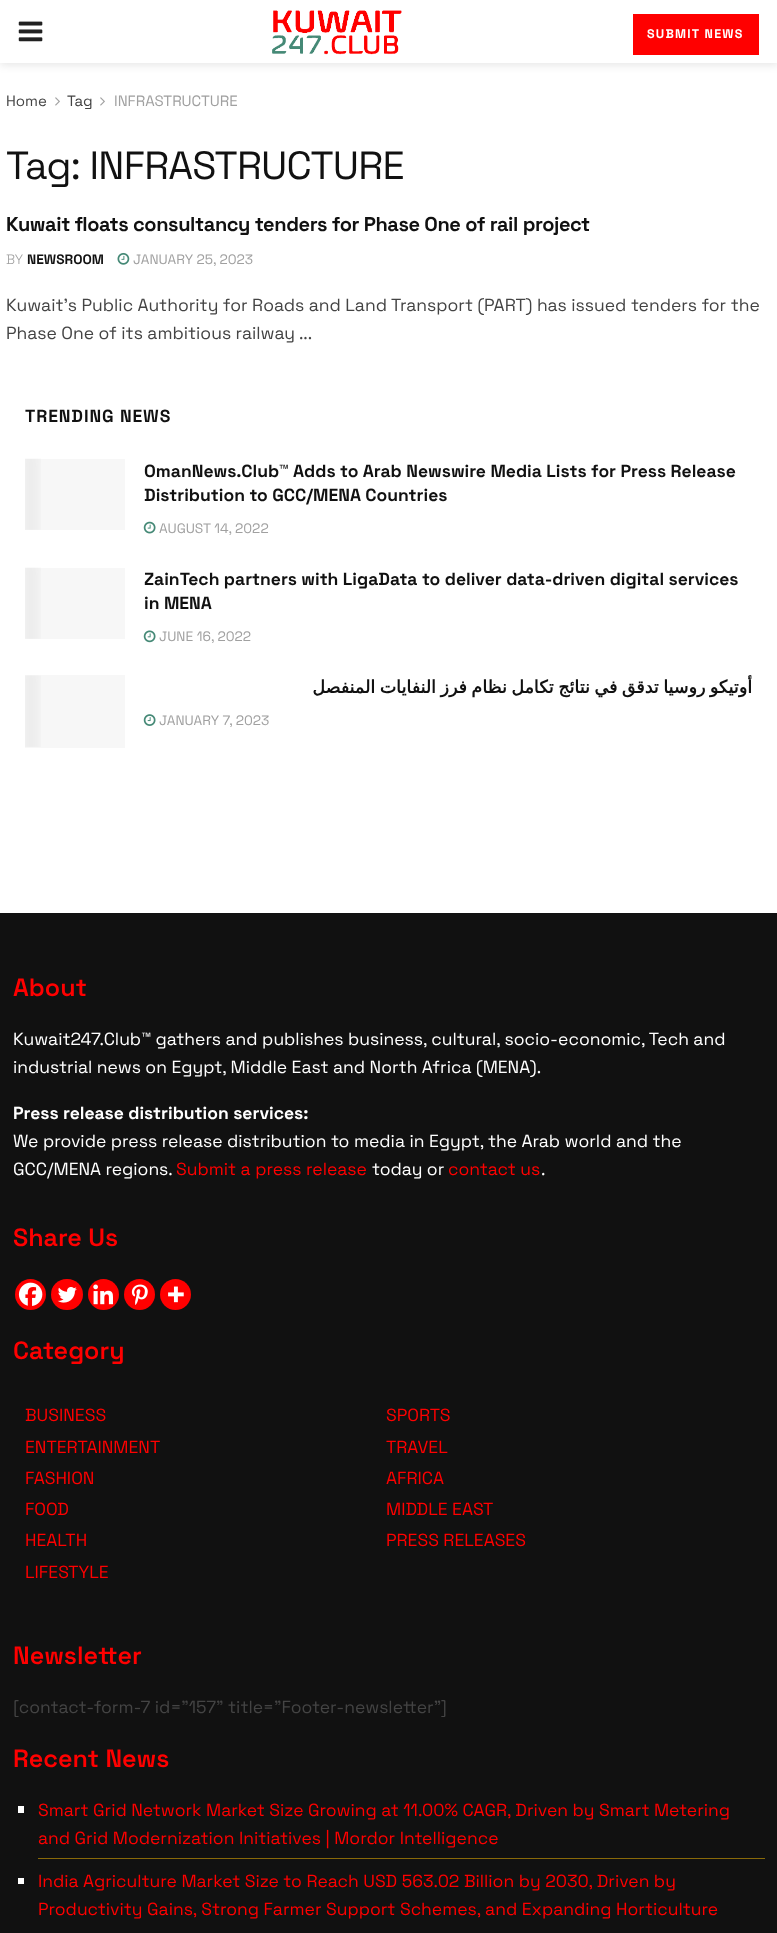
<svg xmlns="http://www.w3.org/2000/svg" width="777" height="1933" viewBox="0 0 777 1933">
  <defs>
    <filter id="blur1" x="-50%" y="-200%" width="200%" height="500%"><feGaussianBlur stdDeviation="4"/></filter>
    <clipPath id="clip1"><rect x="25" y="675" width="728" height="73"/></clipPath>
  </defs>
  <rect width="100%" height="100%" fill="#ffffff"/>
  <rect x="0" y="3" width="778" height="62" fill="#000000" fill-opacity="0.1" filter="url(#blur1)"/>
  <rect x="0" y="0" width="777" height="63" fill="#ffffff"/>
  <image x="18" y="21" width="25" height="21" href="img1.png"/>
  <image x="272" y="10" width="130" height="45" href="img2.png"/>
  <rect x="633" y="14" width="126" height="41" fill="#ff0000"/>
  <text x="647" y="38" font-family="Space Grotesk" font-size="12.5" font-weight="bold" letter-spacing="1.25" fill="#ffffff">SUBMIT NEWS</text>
  <text x="6" y="106" font-family="Space Grotesk" font-size="15" fill="#444444">Home</text>
  <image x="55" y="97" width="5" height="9" href="img3.png"/>
  <text x="67" y="106" font-family="Space Grotesk" font-size="15" fill="#444444">Tag</text>
  <image x="100" y="97" width="5" height="9" href="img3.png"/>
  <text x="114" y="106" font-family="Space Grotesk" font-size="15" fill="#a0a0a0">INFRASTRUCTURE</text>
  <text x="6" y="179" font-family="Space Grotesk" font-size="39.4" letter-spacing="-0.75" fill="#111111">Tag: INFRASTRUCTURE</text>
  <text x="6" y="231" font-family="Space Grotesk" font-size="20" font-weight="bold" letter-spacing="-0.4" fill="#111111">Kuwait floats consultancy tenders for Phase One of rail project</text>
  <text x="6" y="264" font-family="Space Grotesk" font-size="13.75" font-weight="300" fill="#a0a0a0">BY</text>
  <text x="27" y="264" font-family="Space Grotesk" font-size="13.75" font-weight="bold" fill="#111111">NEWSROOM</text>
  <image x="117" y="252" width="13" height="13" href="img4.png"/>
  <text x="133" y="264" font-family="Space Grotesk" font-size="13.75" fill="#a0a0a0">JANUARY 25, 2023</text>
  <text x="6" y="311" font-family="Space Grotesk" font-size="17.5" fill="#444444">Kuwait's Public Authority for Roads and Land Transport (PART) has issued tenders for the</text>
  <text x="6" y="339" font-family="Space Grotesk" font-size="17.5" fill="#444444">Phase One of its ambitious railway ...</text>
  <text x="25" y="422" font-family="Space Grotesk" font-size="17.5" font-weight="bold" letter-spacing="0.9" fill="#111111">TRENDING NEWS</text>
  <rect x="25" y="459" width="100" height="71" fill="#f7f7f7"/>
  <image x="25" y="458" width="16" height="72" href="img5.png"/>
  <text x="144" y="477" font-family="Space Grotesk" font-size="17.5" font-weight="bold" fill="#111111">OmanNews.Club™ Adds to Arab Newswire Media Lists for Press Release</text>
  <text x="144" y="501" font-family="Space Grotesk" font-size="17.5" font-weight="bold" fill="#111111">Distribution to GCC/MENA Countries</text>
  <image x="143" y="521" width="13" height="13" href="img6.png"/>
  <text x="159" y="533" font-family="Space Grotesk" font-size="13.75" fill="#a0a0a0">AUGUST 14, 2022</text>
  <rect x="25" y="568" width="100" height="71" fill="#f7f7f7"/>
  <image x="25" y="567" width="16" height="72" href="img7.png"/>
  <text x="144" y="585" font-family="Space Grotesk" font-size="17.5" font-weight="bold" fill="#111111">ZainTech partners with LigaData to deliver data-driven digital services</text>
  <text x="144" y="609" font-family="Space Grotesk" font-size="17.5" font-weight="bold" fill="#111111">in MENA</text>
  <image x="143" y="630" width="13" height="13" href="img8.png"/>
  <text x="159" y="641" font-family="Space Grotesk" font-size="13.75" fill="#a0a0a0">JUNE 16, 2022</text>
  <rect x="25" y="675" width="100" height="73" fill="#f7f7f7"/>
  <image x="25" y="675" width="16" height="72" href="img9.png"/>
  <g clip-path="url(#clip1)">
    <text x="752" y="693" word-spacing="-1.1" font-family="DejaVu Sans" font-size="17.5" font-weight="bold" direction="rtl" fill="#111111">أوتيكو روسيا تدقق في نتائج تكامل نظام فرز النفايات المنفصل</text>
  </g>
  <image x="143" y="714" width="13" height="12" href="img10.png"/>
  <text x="159" y="725" font-family="Space Grotesk" font-size="13.75" fill="#a0a0a0">JANUARY 7, 2023</text>
  <rect x="0" y="913" width="777" height="1020" fill="#111111"/>
  <text x="13" y="996" font-family="Space Grotesk" font-size="25" font-weight="600" fill="#ff0000">About</text>
  <text x="13" y="1045" font-family="Space Grotesk" font-size="17.5" fill="#ffffff">Kuwait247.Club™ gathers and publishes business, cultural, socio-economic, Tech and</text>
  <text x="13" y="1073" font-family="Space Grotesk" font-size="17.5" fill="#ffffff">industrial news on Egypt, Middle East and North Africa (MENA).</text>
  <text x="13" y="1119" font-family="Space Grotesk" font-size="17.5" font-weight="bold" fill="#ffffff">Press release distribution services:</text>
  <text x="13" y="1147" font-family="Space Grotesk" font-size="17.5" fill="#ffffff">We provide press release distribution to media in Egypt, the Arab world and the</text>
  <text x="13" y="1175" font-family="Space Grotesk" font-size="17.5" fill="#ffffff">GCC/MENA regions.</text>
  <text x="176" y="1175" font-family="Space Grotesk" font-size="17.5" fill="#ff0000">Submit a press release</text>
  <text x="372" y="1175" font-family="Space Grotesk" font-size="17.5" fill="#ffffff">today or</text>
  <text x="448" y="1175" font-family="Space Grotesk" font-size="17.5" fill="#ff0000">contact us</text>
  <text x="541" y="1175" font-family="Space Grotesk" font-size="17.5" fill="#ffffff">.</text>
  <text x="13" y="1246" font-family="Space Grotesk" font-size="25" font-weight="600" fill="#ff0000">Share Us</text>
  <circle cx="30.5" cy="1294.5" r="15.5" fill="#ff0000"/>
  <image x="18" y="1282" width="25" height="24" href="img11.png"/>
  <rect x="51" y="1279" width="32" height="31" rx="15.5" fill="#ff0000"/>
  <image x="57" y="1287" width="20" height="16" href="img12.png"/>
  <circle cx="103.5" cy="1294.5" r="15.5" fill="#ff0000"/>
  <image x="93" y="1284" width="20" height="21" href="img13.png"/>
  <circle cx="139.5" cy="1294.5" r="15.5" fill="#ff0000"/>
  <image x="131" y="1284" width="17" height="21" href="img14.png"/>
  <circle cx="175.5" cy="1294.5" r="15.5" fill="#ff0000"/>
  <image x="168" y="1286" width="16" height="17" href="img15.png"/>
  <text x="13" y="1359" font-family="Space Grotesk" font-size="25" font-weight="600" fill="#ff0000">Category</text>
  <text x="25" y="1421" font-family="Space Grotesk" font-size="17.5" fill="#ff0000">BUSINESS</text>
  <text x="25" y="1453" font-family="Space Grotesk" font-size="17.5" fill="#ff0000">ENTERTAINMENT</text>
  <text x="25" y="1484" font-family="Space Grotesk" font-size="17.5" fill="#ff0000">FASHION</text>
  <text x="25" y="1515" font-family="Space Grotesk" font-size="17.5" fill="#ff0000">FOOD</text>
  <text x="25" y="1546" font-family="Space Grotesk" font-size="17.5" fill="#ff0000">HEALTH</text>
  <text x="25" y="1578" font-family="Space Grotesk" font-size="17.5" fill="#ff0000">LIFESTYLE</text>
  <text x="386" y="1421" font-family="Space Grotesk" font-size="17.5" fill="#ff0000">SPORTS</text>
  <text x="386" y="1453" font-family="Space Grotesk" font-size="17.5" fill="#ff0000">TRAVEL</text>
  <text x="386" y="1484" font-family="Space Grotesk" font-size="17.5" fill="#ff0000">AFRICA</text>
  <text x="386" y="1515" font-family="Space Grotesk" font-size="17.5" fill="#ff0000">MIDDLE EAST</text>
  <text x="386" y="1546" font-family="Space Grotesk" font-size="17.5" fill="#ff0000">PRESS RELEASES</text>
  <text x="13" y="1664" font-family="Space Grotesk" font-size="25" font-weight="600" fill="#ff0000">Newsletter</text>
  <text x="13" y="1713" font-family="Space Grotesk" font-size="17.5" fill="#444444">[contact-form-7 id="157" title="Footer-newsletter"]</text>
  <text x="13" y="1767" font-family="Space Grotesk" font-size="25" font-weight="600" fill="#ff0000">Recent News</text>
  <rect x="38" y="1858" width="727" height="1" fill="#886909"/>
  <rect x="18" y="1806" width="6" height="7" fill="#ffffff"/>
  <text x="38" y="1816" font-family="Space Grotesk" font-size="17.5" fill="#ff0000">Smart Grid Network Market Size Growing at 11.00% CAGR, Driven by Smart Metering</text>
  <text x="38" y="1844" font-family="Space Grotesk" font-size="17.5" fill="#ff0000">and Grid Modernization Initiatives | Mordor Intelligence</text>
  <rect x="18" y="1878" width="6" height="6" fill="#ffffff"/>
  <text x="38" y="1887" font-family="Space Grotesk" font-size="17.5" fill="#ff0000">India Agriculture Market Size to Reach USD 563.02 Billion by 2030, Driven by</text>
  <text x="38" y="1915" font-family="Space Grotesk" font-size="17.5" fill="#ff0000">Productivity Gains, Strong Farmer Support Schemes, and Expanding Horticulture</text>
</svg>
